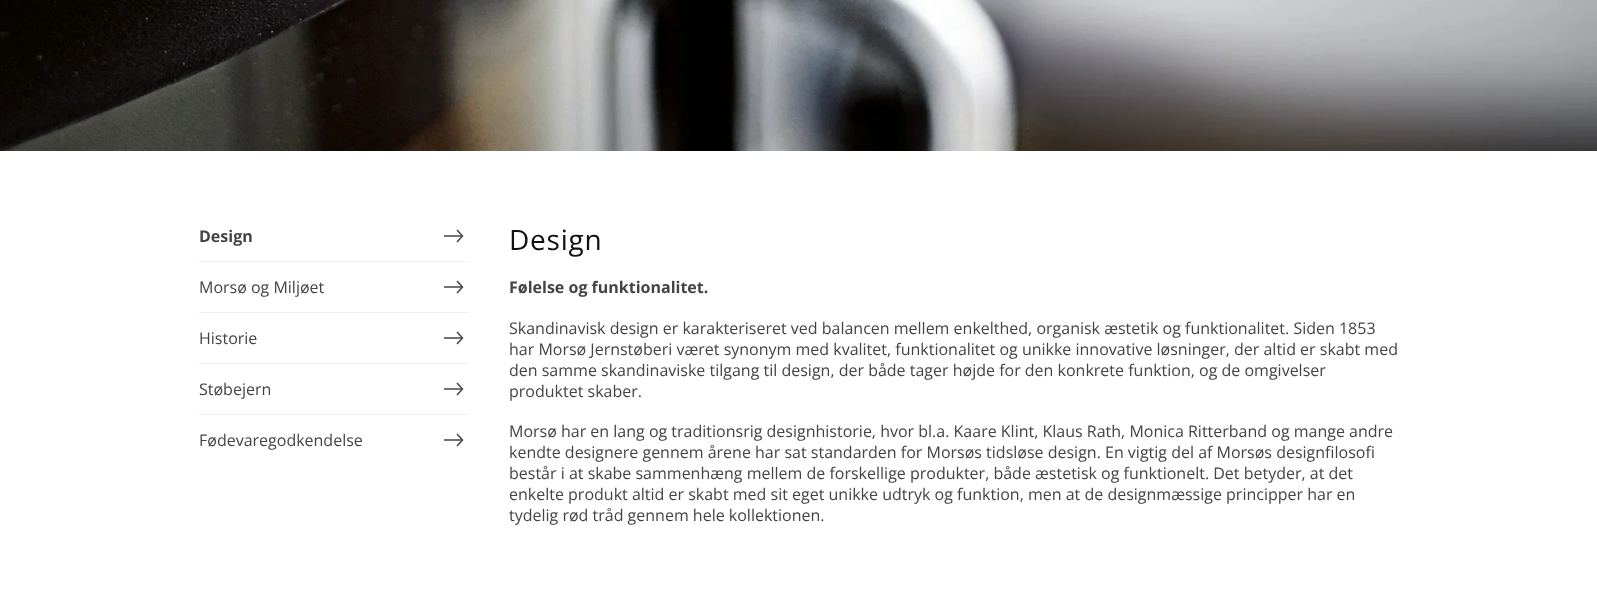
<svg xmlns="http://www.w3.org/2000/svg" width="1597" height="610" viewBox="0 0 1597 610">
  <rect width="100%" height="100%" fill="#ffffff"/>
  <image x="0" y="0" width="1597" height="151" href="img1.png"/>
  <text x="199" y="242" font-family="Open Sans" font-size="16" font-weight="bold" fill="#444444">Design</text>
  <rect x="444" y="235" width="18" height="2" fill="#737373"/>
  <path d="M457 242L462.5 236L457 230" fill="none" stroke="#444444" stroke-width="1.5"/>
  <rect x="199" y="261" width="270" height="1" fill="#f0f0f0"/>
  <text x="199" y="293" font-family="Open Sans" font-size="16" fill="#444444">Morsø og Miljøet</text>
  <rect x="444" y="286" width="18" height="2" fill="#737373"/>
  <path d="M457 293L462.5 287L457 281" fill="none" stroke="#444444" stroke-width="1.5"/>
  <rect x="199" y="312" width="270" height="1" fill="#f0f0f0"/>
  <text x="199" y="344" font-family="Open Sans" font-size="16" fill="#444444">Historie</text>
  <rect x="444" y="337" width="18" height="2" fill="#737373"/>
  <path d="M457 344L462.5 338L457 332" fill="none" stroke="#444444" stroke-width="1.5"/>
  <rect x="199" y="363" width="270" height="1" fill="#f0f0f0"/>
  <text x="199" y="395" font-family="Open Sans" font-size="16" fill="#444444">Støbejern</text>
  <rect x="444" y="388" width="18" height="2" fill="#737373"/>
  <path d="M457 395L462.5 389L457 383" fill="none" stroke="#444444" stroke-width="1.5"/>
  <rect x="199" y="414" width="270" height="1" fill="#f0f0f0"/>
  <text x="199" y="446" font-family="Open Sans" font-size="16" fill="#444444">Fødevaregodkendelse</text>
  <rect x="444" y="439" width="18" height="2" fill="#737373"/>
  <path d="M457 446L462.5 440L457 434" fill="none" stroke="#444444" stroke-width="1.5"/>
  <text x="509" y="250" font-family="Open Sans" font-size="28" letter-spacing="0.75" fill="#111111">Design</text>
  <text x="509" y="293" font-family="Open Sans" font-size="16" font-weight="bold" fill="#444444">Følelse og funktionalitet.</text>
  <text x="509" y="334" font-family="Open Sans" font-size="16" fill="#444444">Skandinavisk design er karakteriseret ved balancen mellem enkelthed, organisk æstetik og funktionalitet. Siden 1853</text>
  <text x="509" y="355" font-family="Open Sans" font-size="16" fill="#444444">har Morsø Jernstøberi været synonym med kvalitet, funktionalitet og unikke innovative løsninger, der altid er skabt med</text>
  <text x="509" y="376" font-family="Open Sans" font-size="16" fill="#444444">den samme skandinaviske tilgang til design, der både tager højde for den konkrete funktion, og de omgivelser</text>
  <text x="509" y="397" font-family="Open Sans" font-size="16" fill="#444444">produktet skaber.</text>
  <text x="509" y="437" font-family="Open Sans" font-size="16" fill="#444444">Morsø har en lang og traditionsrig designhistorie, hvor bl.a. Kaare Klint, Klaus Rath, Monica Ritterband og mange andre</text>
  <text x="509" y="458" font-family="Open Sans" font-size="16" fill="#444444">kendte designere gennem årene har sat standarden for Morsøs tidsløse design. En vigtig del af Morsøs designfilosofi</text>
  <text x="509" y="479" font-family="Open Sans" font-size="16" fill="#444444">består i at skabe sammenhæng mellem de forskellige produkter, både æstetisk og funktionelt. Det betyder, at det</text>
  <text x="509" y="500" font-family="Open Sans" font-size="16" fill="#444444">enkelte produkt altid er skabt med sit eget unikke udtryk og funktion, men at de designmæssige principper har en</text>
  <text x="509" y="521" font-family="Open Sans" font-size="16" fill="#444444">tydelig rød tråd gennem hele kollektionen.</text>
</svg>
